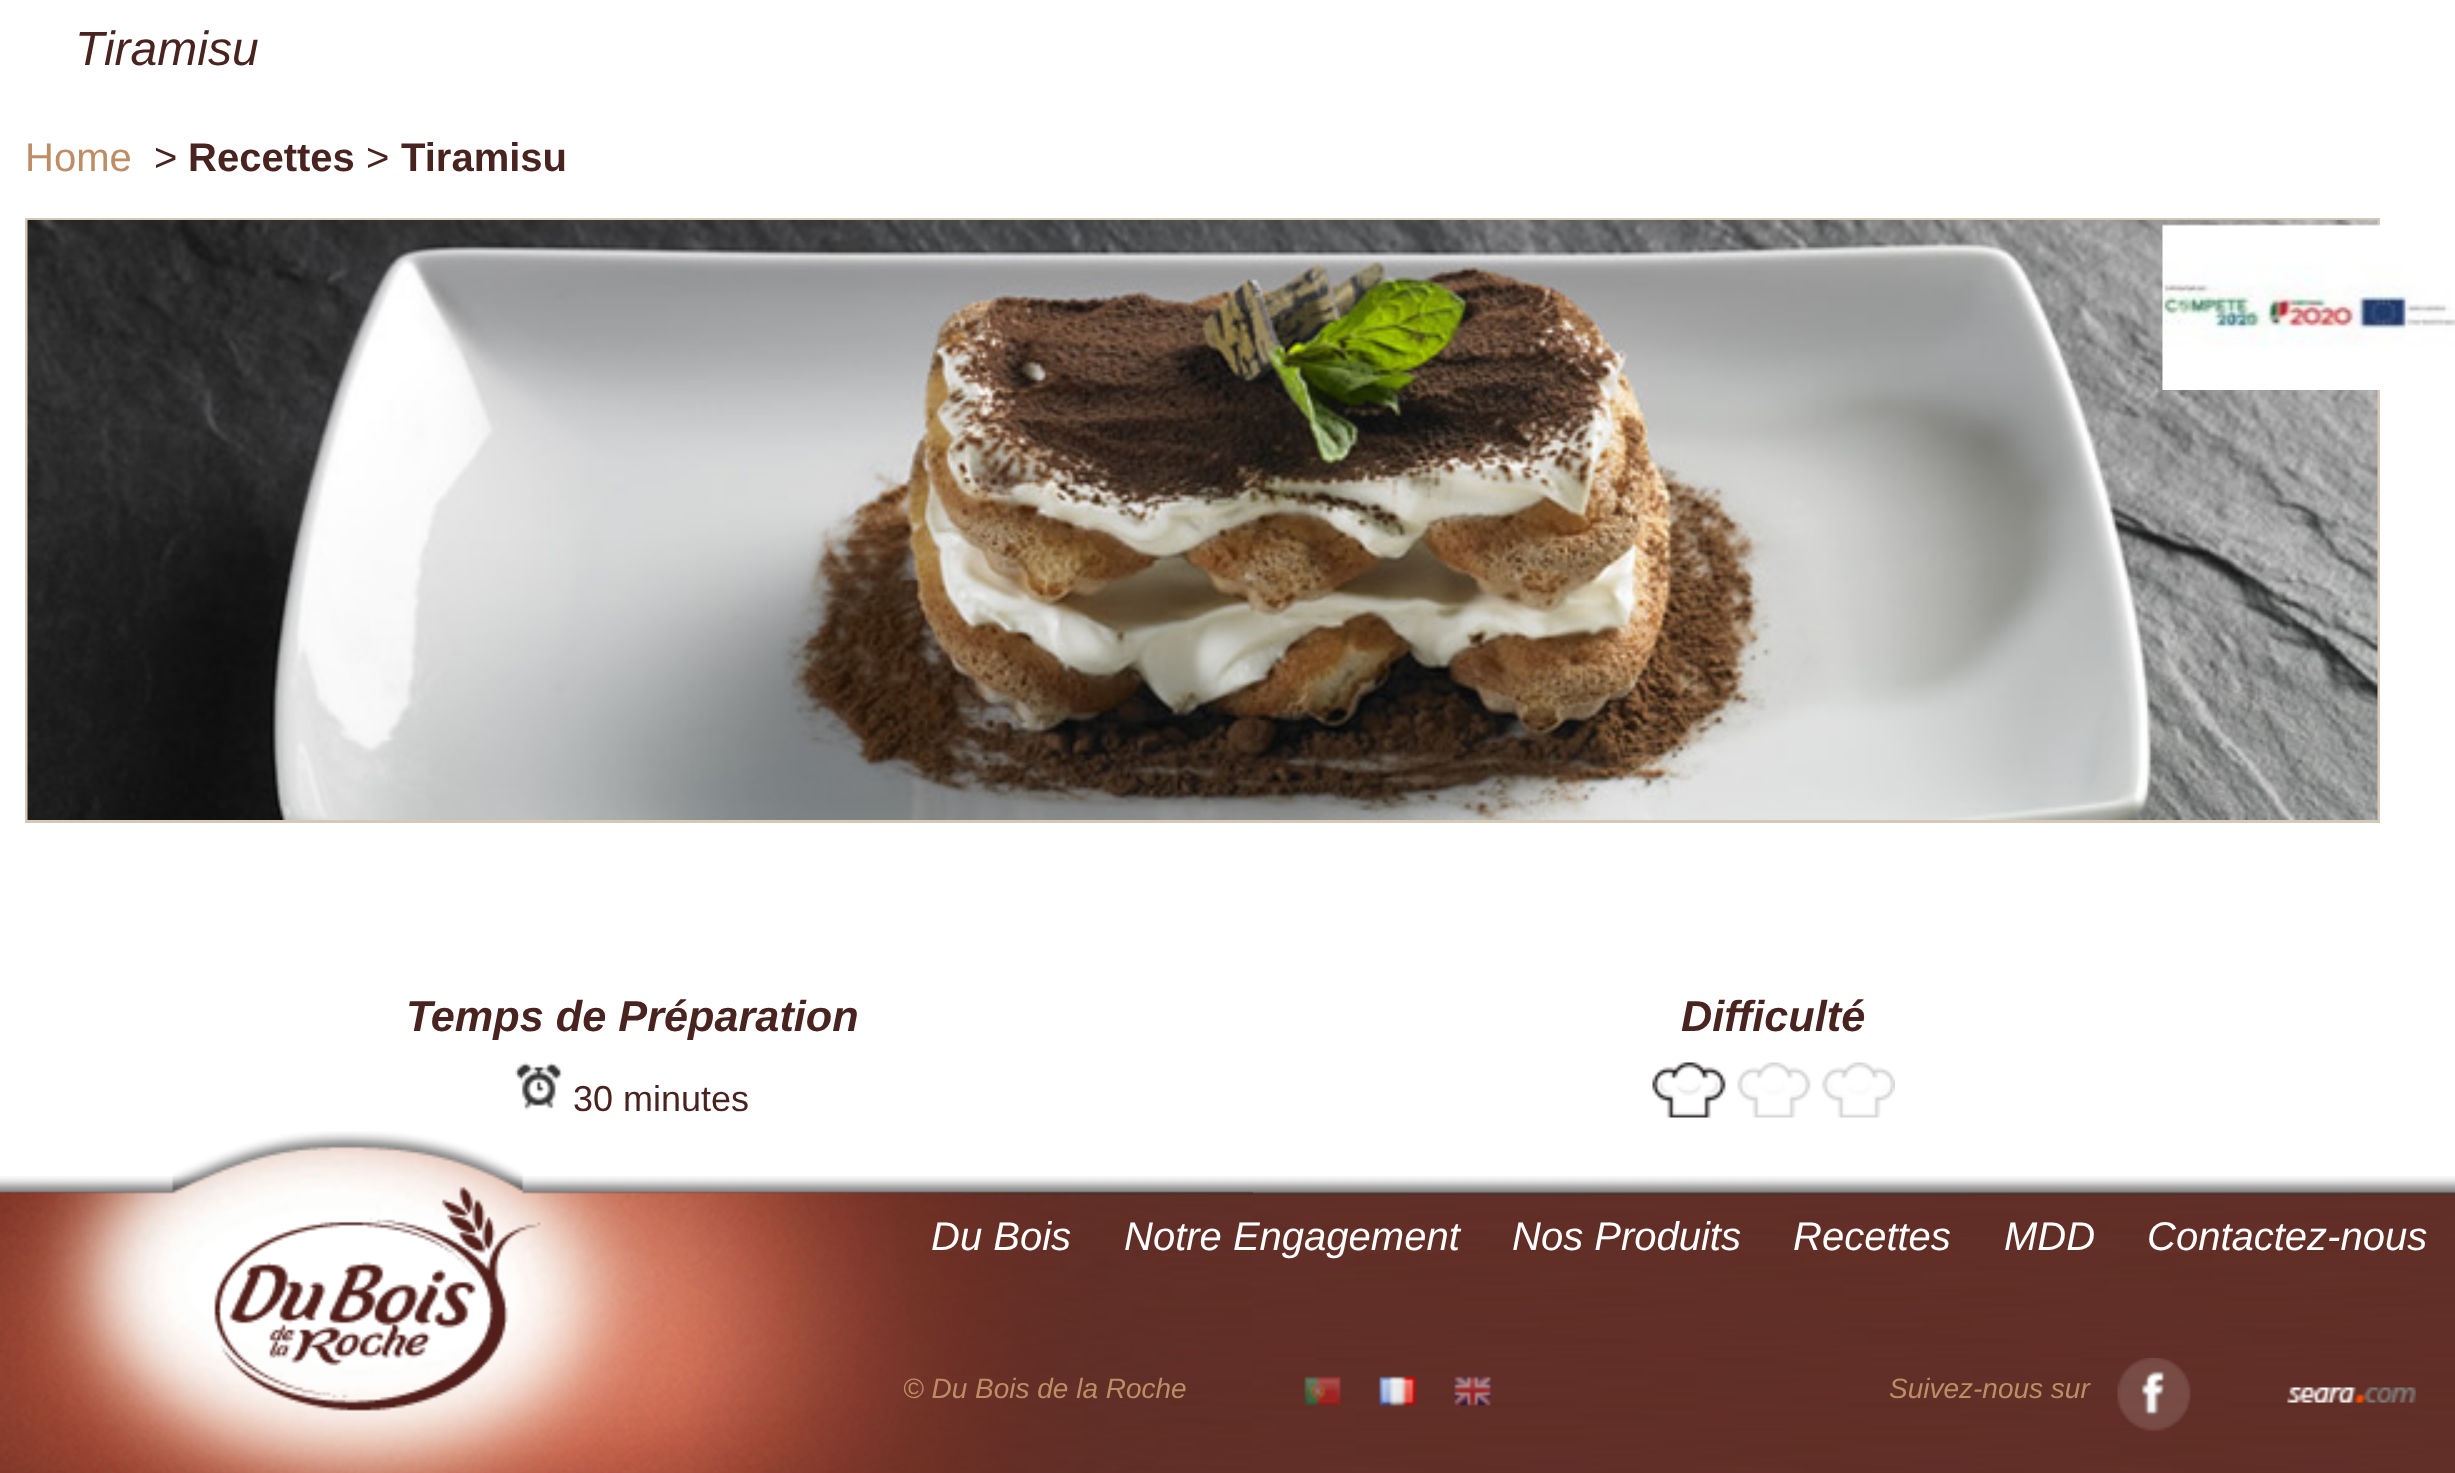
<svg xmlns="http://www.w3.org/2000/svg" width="2455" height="1473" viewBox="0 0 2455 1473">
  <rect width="100%" height="100%" fill="#ffffff"/>
  <text x="75" y="65" font-family="Liberation Sans" font-size="48" font-style="italic" fill="#49231f">Tiramisu</text>
  <text x="25" y="171" font-family="Liberation Sans" font-size="40" fill="#be8d65">Home</text>
  <text x="154" y="171" font-family="Liberation Sans" font-size="40" fill="#49231f">&gt;</text>
  <text x="188" y="171" font-family="Liberation Sans" font-size="40" font-weight="bold" fill="#49231f">Recettes</text>
  <text x="366" y="171" font-family="Liberation Sans" font-size="40" fill="#49231f">&gt;</text>
  <text x="401" y="171" font-family="Liberation Sans" font-size="40" font-weight="bold" fill="#49231f">Tiramisu</text>
  <rect x="26.5" y="219.5" width="2352" height="602" fill="none" stroke="#d5c8b4" stroke-width="3"/>
  <image x="27" y="220" width="2351" height="600" href="img1.png"/>
  <text x="406" y="1031" font-family="Liberation Sans" font-size="43.25" font-weight="bold" font-style="italic" fill="#49231f">Temps de Préparation</text>
  <image x="515" y="1062" width="48" height="48" href="img2.png"/>
  <text x="573" y="1111" font-family="Liberation Sans" font-size="36" fill="#49231f">30 minutes</text>
  <text x="1681" y="1031" font-family="Liberation Sans" font-size="43.25" font-weight="bold" font-style="italic" fill="#49231f">Difficulté</text>
  <image x="1652" y="1062" width="243" height="56" href="img3.png"/>
  <image x="2162" y="224" width="293" height="166" href="img4.png"/>
  <image x="0" y="1176" width="2455" height="297" href="img5.png"/>
  <image x="0" y="1131" width="1253" height="342" href="img6.png"/>
  <image x="214" y="1186" width="327" height="225" href="img7.png"/>
  <text x="931" y="1250" font-family="Liberation Sans" font-size="40" font-style="italic" fill="#ffffff">Du Bois</text>
  <text x="1124" y="1250" font-family="Liberation Sans" font-size="40" font-style="italic" fill="#ffffff">Notre Engagement</text>
  <text x="1512" y="1250" font-family="Liberation Sans" font-size="40" font-style="italic" fill="#ffffff">Nos Produits</text>
  <text x="1793" y="1250" font-family="Liberation Sans" font-size="40" font-style="italic" fill="#ffffff">Recettes</text>
  <text x="2004" y="1250" font-family="Liberation Sans" font-size="40" font-style="italic" fill="#ffffff">MDD</text>
  <text x="2147" y="1250" font-family="Liberation Sans" font-size="40" font-style="italic" fill="#ffffff">Contactez-nous</text>
  <text x="903" y="1398" font-family="Liberation Sans" font-size="28" font-style="italic" fill="#be8d65">© Du Bois de la Roche</text>
  <image x="1304" y="1376" width="38" height="30" href="img8.png"/>
  <image x="1378" y="1376" width="39" height="31" href="img9.png"/>
  <image x="1454" y="1376" width="38" height="30" href="img10.png"/>
  <text x="1889" y="1398" font-family="Liberation Sans" font-size="28" font-style="italic" fill="#be8d65">Suivez-nous sur</text>
  <image x="2117" y="1358" width="74" height="73" href="img11.png"/>
  <image x="2287" y="1387" width="129" height="16" href="img12.png"/>
</svg>
